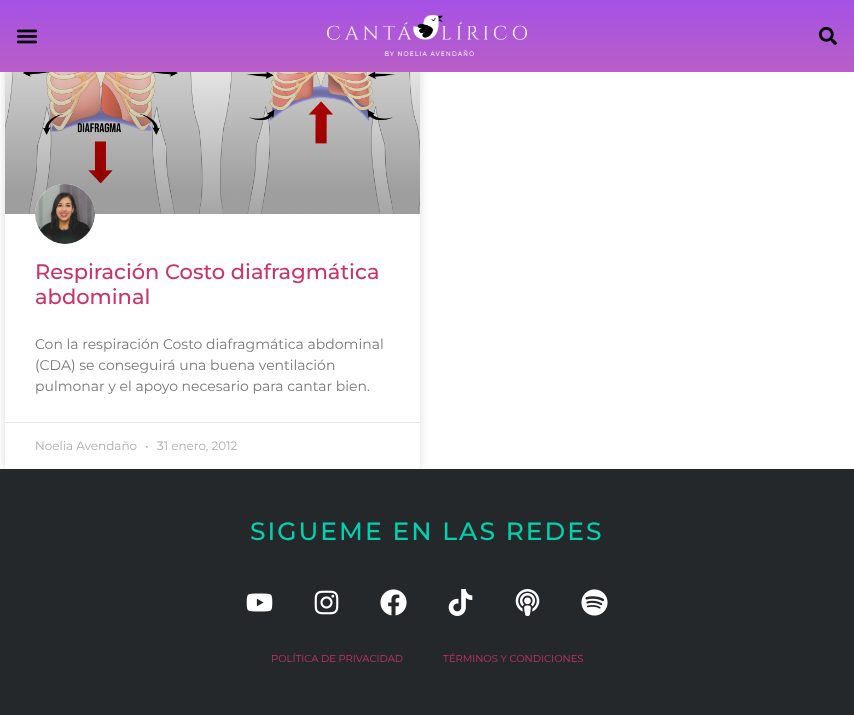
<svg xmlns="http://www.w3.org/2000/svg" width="854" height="715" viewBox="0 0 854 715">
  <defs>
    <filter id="blur1" x="-50%" y="-200%" width="200%" height="500%"><feGaussianBlur stdDeviation="5"/></filter>
    <linearGradient id="g1" gradientUnits="userSpaceOnUse" x1="427" y1="0" x2="427" y2="72"><stop offset="0" stop-color="#a060d8"/><stop offset="1" stop-color="#c47997"/></linearGradient>
    <linearGradient id="g2" gradientUnits="userSpaceOnUse" x1="213" y1="214" x2="213" y2="-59"><stop offset="0" stop-color="#000000" stop-opacity="0.35"/><stop offset="0.75" stop-color="#000000" stop-opacity="0"/></linearGradient>
  </defs>
  <rect width="100%" height="100%" fill="#ffffff"/>
  <rect x="5" y="-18" width="415" height="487" rx="3" fill="#000000" fill-opacity="0.15" filter="url(#blur1)"/>
  <rect x="5" y="-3" width="415" height="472" rx="3" fill="#ffffff"/>
  <rect x="0" y="0" width="854" height="72" fill="url(#g1)"/>
  <rect x="0" y="0" width="854" height="72" fill="#ac44f6" fill-opacity="0.5"/>
  <image x="16" y="29" width="22" height="15" href="img1.png"/>
  <image x="327" y="15" width="200" height="41" href="img2.png"/>
  <image x="819" y="27" width="18" height="18" href="img3.png"/>
  <image x="5" y="72" width="415" height="142" href="img4.png"/>
  <rect x="5" y="72" width="415" height="142" fill="url(#g2)"/>
  <image x="35" y="184" width="60" height="60" href="img5.png"/>
  <text x="35" y="279" font-family="Montserrat" font-size="21" font-weight="500" fill="#cc3366">Respiración Costo diafragmática</text>
  <text x="35" y="304" font-family="Montserrat" font-size="21" font-weight="500" fill="#cc3366">abdominal</text>
  <text x="35" y="349" font-family="Montserrat" font-size="14" fill="#777777">Con la respiración Costo diafragmática abdominal</text>
  <text x="35" y="370" font-family="Montserrat" font-size="14" fill="#777777">(CDA) se conseguirá una buena ventilación</text>
  <text x="35" y="391" font-family="Montserrat" font-size="14" fill="#777777">pulmonar y el apoyo necesario para cantar bien.</text>
  <rect x="5" y="422" width="415" height="1" fill="#eaeaea"/>
  <text x="35" y="450" font-family="Montserrat" font-size="12" fill="#adadad">Noelia Avendaño</text>
  <text x="145" y="450" font-family="Montserrat" font-size="12" fill="#adadad">•</text>
  <text x="157" y="450" font-family="Montserrat" font-size="12" fill="#adadad">31 enero, 2012</text>
  <rect x="0" y="469" width="854" height="246" fill="#25282b"/>
  <text x="250" y="540" font-family="Montserrat" font-size="25" font-weight="500" letter-spacing="2" fill="#02d1ae">SIGUEME EN LAS REDES</text>
  <image x="246" y="593" width="27" height="19" href="img6.png"/>
  <image x="314" y="590" width="25" height="25" href="img7.png"/>
  <image x="380" y="589" width="27" height="27" href="img8.png"/>
  <image x="448" y="589" width="25" height="27" href="img9.png"/>
  <image x="515" y="589" width="25" height="27" href="img10.png"/>
  <image x="581" y="589" width="27" height="27" href="img11.png"/>
  <text x="271" y="662" font-family="Montserrat" font-size="10" fill="#cc3366">POLÍTICA DE PRIVACIDAD</text>
  <text x="443" y="662" font-family="Montserrat" font-size="10" fill="#cc3366">TÉRMINOS Y CONDICIONES</text>
</svg>
